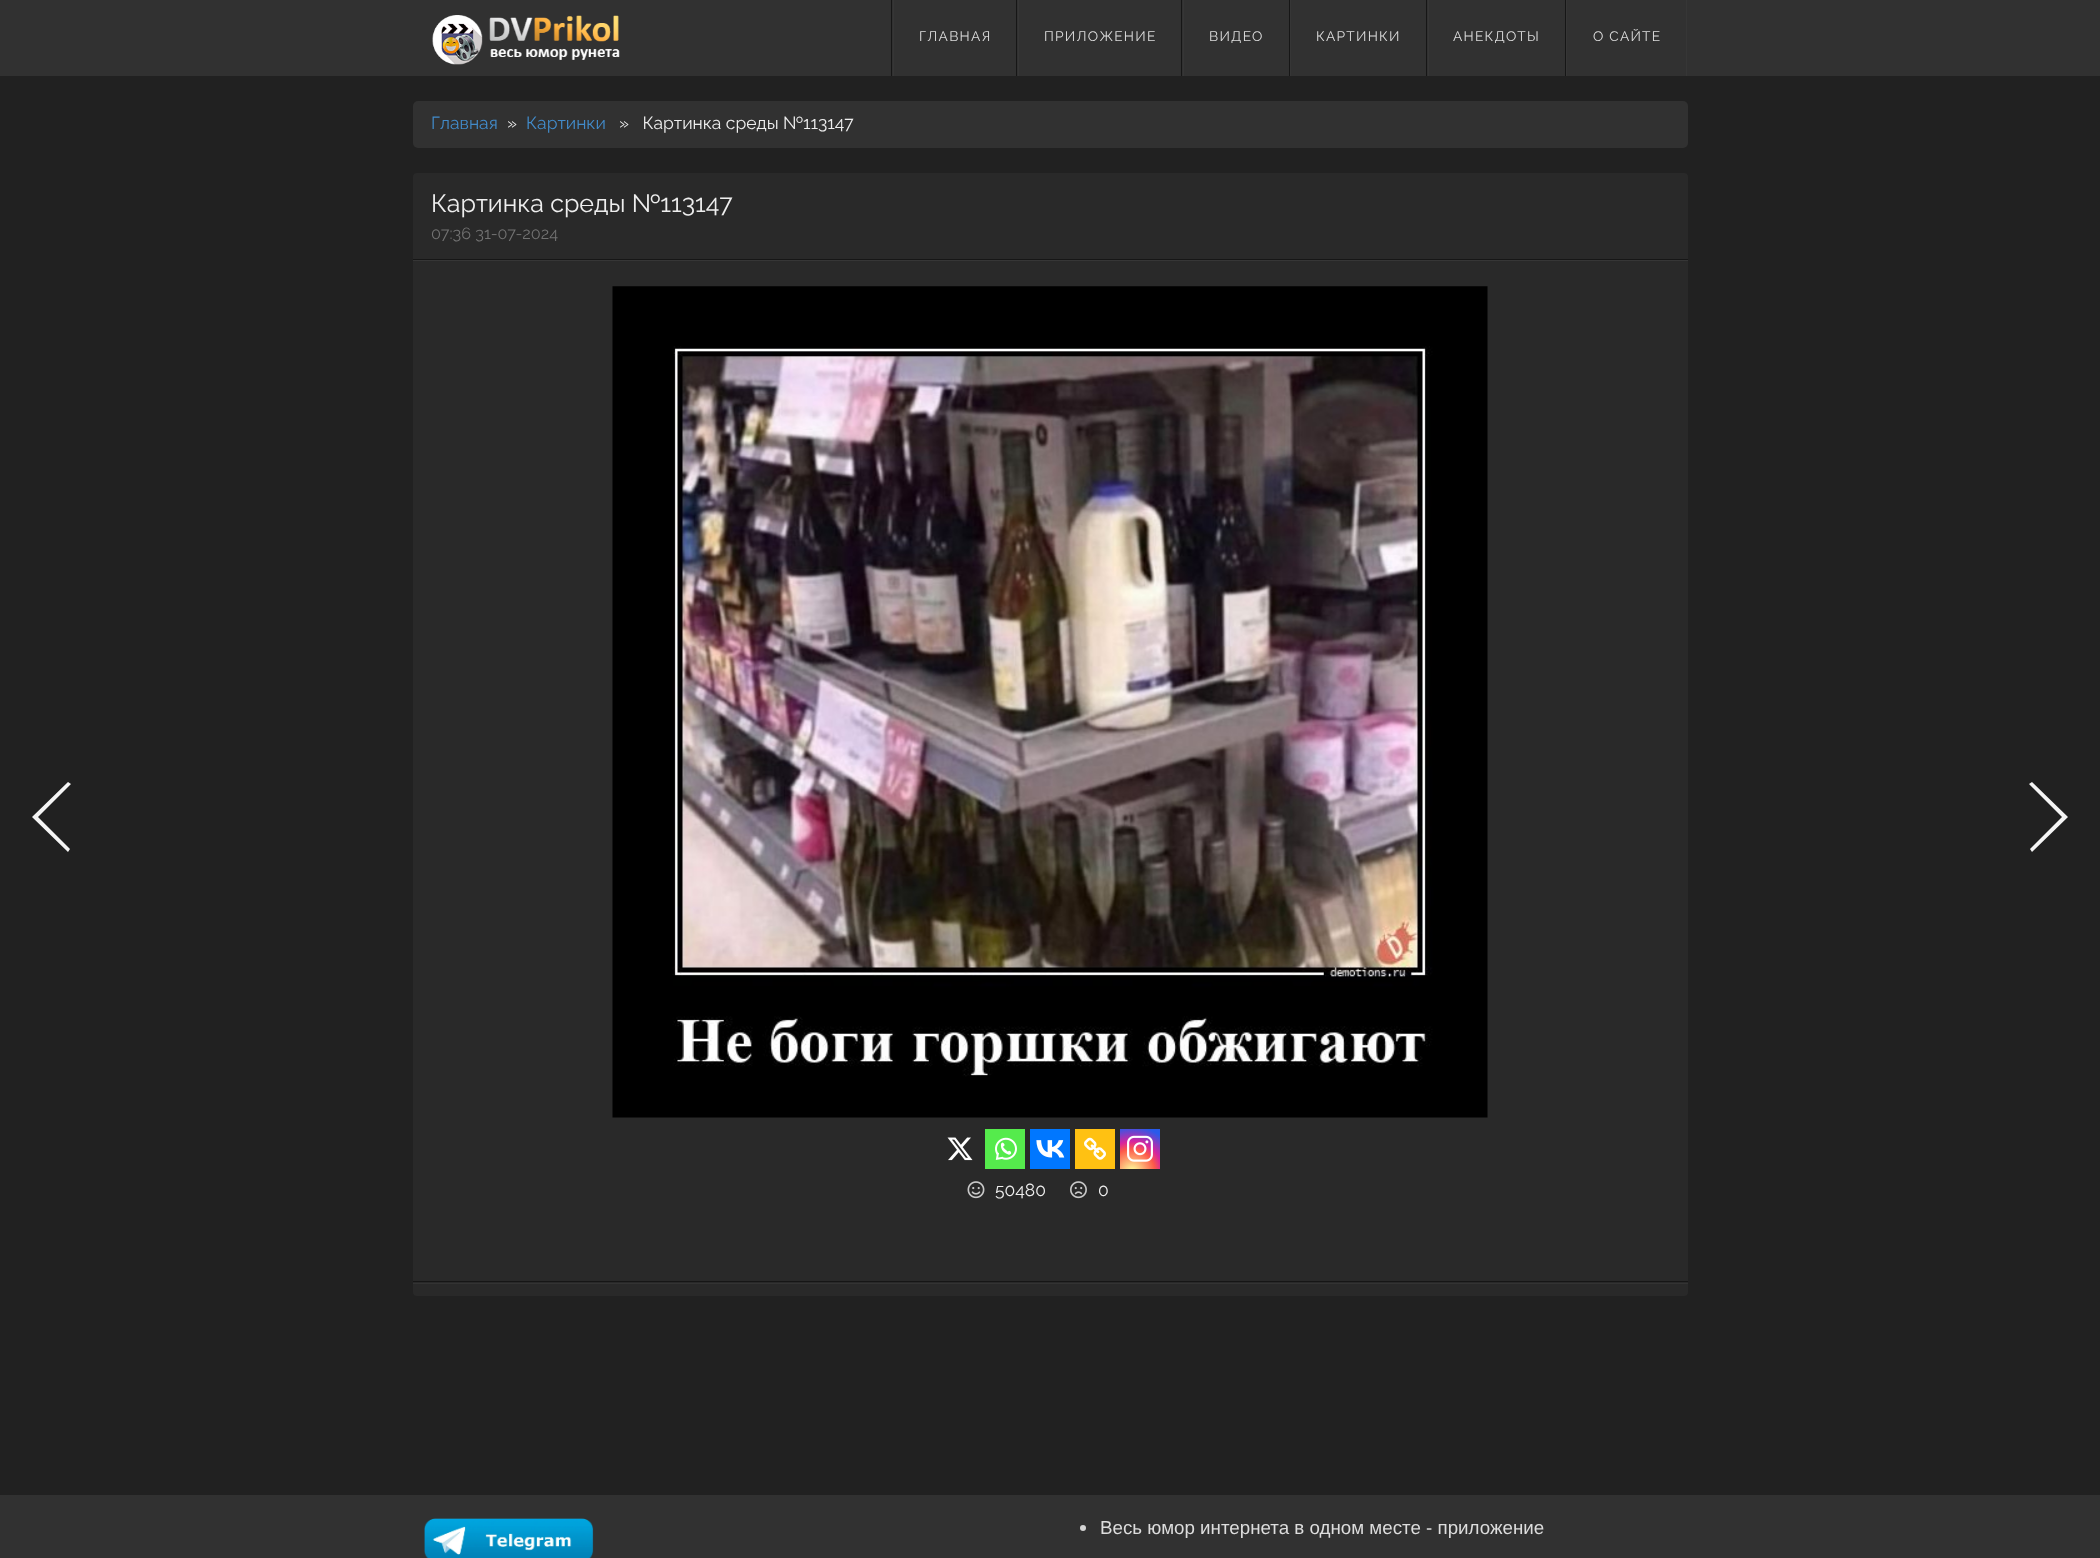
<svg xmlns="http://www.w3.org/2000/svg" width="2100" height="1558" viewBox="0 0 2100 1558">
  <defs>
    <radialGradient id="g1" gradientUnits="userSpaceOnUse" cx="1132" cy="1172" r="51"><stop offset="0" stop-color="#fdf497"/><stop offset="0.05" stop-color="#fdf497"/><stop offset="0.45" stop-color="#fd5949"/><stop offset="0.6" stop-color="#d6249f"/><stop offset="0.9" stop-color="#285aeb"/></radialGradient>
  </defs>
  <rect width="100%" height="100%" fill="#212121"/>
  <rect x="0" y="0" width="2100" height="76" fill="#313131"/>
  <image x="432" y="15" width="188" height="50" href="img1.png"/>
  <rect x="891" y="0" width="1" height="76" fill="#161616"/>
  <rect x="893" y="0" width="1" height="76" fill="#363636"/>
  <text x="919" y="41" font-family="Raleway" font-size="13.75" letter-spacing="1.25" fill="#dddddd">ГЛАВНАЯ</text>
  <rect x="1016" y="0" width="1" height="76" fill="#161616"/>
  <rect x="1018" y="0" width="1" height="76" fill="#363636"/>
  <text x="1044" y="41" font-family="Raleway" font-size="13.75" letter-spacing="1.25" fill="#dddddd">ПРИЛОЖЕНИЕ</text>
  <rect x="1181" y="0" width="1" height="76" fill="#161616"/>
  <rect x="1183" y="0" width="1" height="76" fill="#363636"/>
  <text x="1209" y="41" font-family="Raleway" font-size="13.75" letter-spacing="1.25" fill="#dddddd">ВИДЕО</text>
  <rect x="1289" y="0" width="1" height="76" fill="#161616"/>
  <rect x="1290" y="0" width="1" height="76" fill="#363636"/>
  <text x="1316" y="41" font-family="Raleway" font-size="13.75" letter-spacing="1.25" fill="#dddddd">КАРТИНКИ</text>
  <rect x="1426" y="0" width="1" height="76" fill="#161616"/>
  <rect x="1428" y="0" width="1" height="76" fill="#363636"/>
  <text x="1453" y="41" font-family="Raleway" font-size="13.75" letter-spacing="1.25" fill="#dddddd">АНЕКДОТЫ</text>
  <rect x="1565" y="0" width="1" height="76" fill="#161616"/>
  <rect x="1686" y="0" width="1" height="76" fill="#363636"/>
  <rect x="1566" y="0" width="1" height="76" fill="#363636"/>
  <text x="1593" y="41" font-family="Raleway" font-size="13.75" letter-spacing="1.25" fill="#dddddd">О САЙТЕ</text>
  <rect x="413" y="101" width="1275" height="47" rx="5" fill="#313131"/>
  <text x="431" y="129" font-family="Raleway" font-size="17.5" fill="#428bca">Главная</text>
  <text x="507" y="129" font-family="Raleway" font-size="17.5" fill="#eeeeee">»</text>
  <text x="526" y="129" font-family="Raleway" font-size="17.5" fill="#428bca">Картинки</text>
  <text x="619" y="129" font-family="Raleway" font-size="17.5" fill="#eeeeee" xml:space="preserve">»   Картинка среды №113147</text>
  <rect x="413" y="173" width="1275" height="1123" rx="4" fill="#292929"/>
  <rect x="413" y="259" width="1275" height="1" fill="#161616"/>
  <text x="431" y="212" font-family="Raleway" font-size="25" fill="#eeeeee">Картинка среды №113147</text>
  <text x="431" y="239" font-family="Raleway" font-size="16.25" fill="#727272">07:36 31-07-2024</text>
  <rect x="413" y="260" width="1275" height="1" fill="#363636"/>
  <rect x="413" y="1281" width="1275" height="1" fill="#161616"/>
  <image x="612" y="286" width="876" height="832" href="img2.png"/>
  <path d="M68 782L32 817L68 852L70 849L38 817L71 784Z" fill="#f5f5f5"/>
  <path d="M2032 852L2068 817L2032 782L2029 784L2062 817L2030 849Z" fill="#f5f5f5"/>
  <image x="947" y="1137" width="26" height="24" href="img3.png"/>
  <rect x="985" y="1129" width="40" height="40" fill="#55eb4c"/>
  <image x="995" y="1137" width="22" height="23" href="img4.png"/>
  <rect x="1030" y="1129" width="40" height="40" fill="#0077ff"/>
  <image x="1036" y="1140" width="29" height="18" href="img5.png"/>
  <rect x="1075" y="1129" width="40" height="40" fill="#ffc112"/>
  <image x="1084" y="1137" width="22" height="23" href="img6.png"/>
  <rect x="1120" y="1129" width="40" height="40" fill="url(#g1)"/>
  <image x="1127" y="1135" width="26" height="27" href="img7.png"/>
  <image x="967" y="1181" width="18" height="18" href="img8.png"/>
  <text x="995" y="1196" font-family="Raleway" font-size="17.5" fill="#eeeeee">50480</text>
  <image x="1070" y="1181" width="17" height="18" href="img9.png"/>
  <text x="1098" y="1196" font-family="Raleway" font-size="17.5" fill="#eeeeee">0</text>
  <rect x="413" y="1283" width="1275" height="1" fill="#333333"/>
  <rect x="0" y="1495" width="2100" height="63" fill="#313131"/>
  <image x="424" y="1518" width="170" height="40" href="img10.png"/>
  <circle cx="1083" cy="1528" r="3" fill="#d4d4d4"/>
  <text x="1100" y="1534" font-family="Liberation Sans" font-size="18.75" fill="#dddddd">Весь юмор интернета в одном месте - приложение</text>
</svg>
